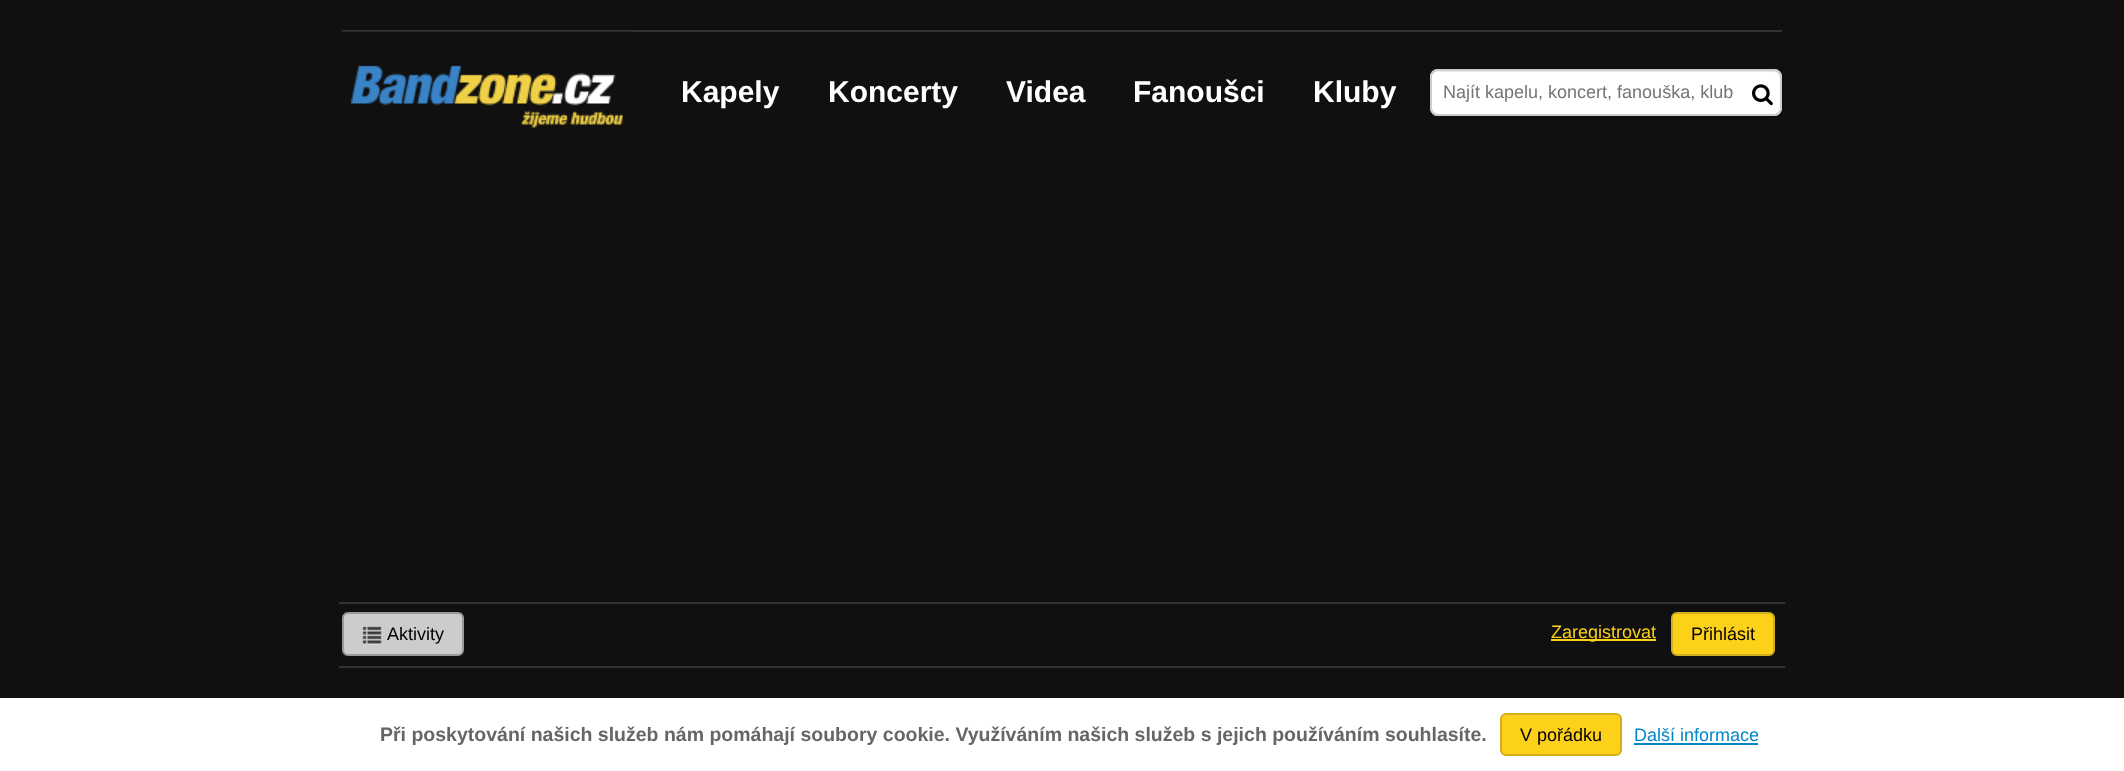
<svg xmlns="http://www.w3.org/2000/svg" width="2124" height="771" viewBox="0 0 2124 771">
  <rect width="100%" height="100%" fill="#101010"/>
  <rect x="342" y="30" width="1440" height="2" fill="#333333"/>
  <image x="342" y="31" width="291" height="97" href="img1.png"/>
  <text x="681" y="102" font-family="Liberation Sans" font-size="30" font-weight="bold" fill="#ffffff">Kapely</text>
  <text x="828" y="102" font-family="Liberation Sans" font-size="30" font-weight="bold" fill="#ffffff">Koncerty</text>
  <text x="1006" y="102" font-family="Liberation Sans" font-size="30" font-weight="bold" fill="#ffffff">Videa</text>
  <text x="1133" y="102" font-family="Liberation Sans" font-size="30" font-weight="bold" fill="#ffffff">Fanoušci</text>
  <text x="1313" y="102" font-family="Liberation Sans" font-size="30" font-weight="bold" fill="#ffffff">Kluby</text>
  <rect x="1430" y="69" width="352" height="47" rx="8" fill="#ffffff"/>
  <path d="M1437 72H1774C1782 72 1780 84 1780 89V112C1781 111 1781 109 1781 108V77C1781 74 1778 71 1775 71H1437C1434 71 1431 74 1431 77V78C1431 75 1434 72 1437 72Z" fill="#ececec"/>
  <rect x="1431" y="70" width="350" height="45" rx="7" fill="none" stroke="#cccccc" stroke-width="2"/>
  <text x="1443" y="98" font-family="Liberation Sans" font-size="18" fill="#757575">Najít kapelu, koncert, fanouška, klub</text>
  <image x="1752" y="84" width="21" height="22" href="img2.png"/>
  <rect x="339" y="602" width="1446" height="2" fill="#333333"/>
  <rect x="339" y="666" width="1446" height="2" fill="#333333"/>
  <rect x="343" y="613" width="120" height="42" rx="5" fill="#cccccc" stroke="#999999" stroke-width="2"/>
  <image x="362" y="626" width="20" height="19" href="img3.png"/>
  <text x="387" y="640" font-family="Liberation Sans" font-size="18" fill="#000000">Aktivity</text>
  <rect x="1551" y="639" width="105" height="2" fill="#fdd119"/>
  <text x="1551" y="638" font-family="Liberation Sans" font-size="18" fill="#fdd119">Zaregistrovat</text>
  <rect x="1672" y="613" width="102" height="42" rx="5" fill="#fdd119" stroke="#d1ae1d" stroke-width="2"/>
  <text x="1691" y="640" font-family="Liberation Sans" font-size="18" fill="#000000">Přihlásit</text>
  <rect x="0" y="698" width="2124" height="73" fill="#ffffff"/>
  <text x="380" y="741" font-family="Liberation Sans" font-size="19.5" font-weight="bold" fill="#666666">Při poskytování našich služeb nám pomáhají soubory cookie. Využíváním našich služeb s jejich používáním souhlasíte.</text>
  <rect x="1501" y="714" width="120" height="41" rx="5" fill="#fdd119" stroke="#d1ae1d" stroke-width="2"/>
  <text x="1520" y="741" font-family="Liberation Sans" font-size="18" fill="#000000">V pořádku</text>
  <text x="1634" y="741" font-family="Liberation Sans" font-size="18" fill="#0187c5">Další informace</text>
  <rect x="1634" y="743" width="124" height="2" fill="#0187c5"/>
</svg>
